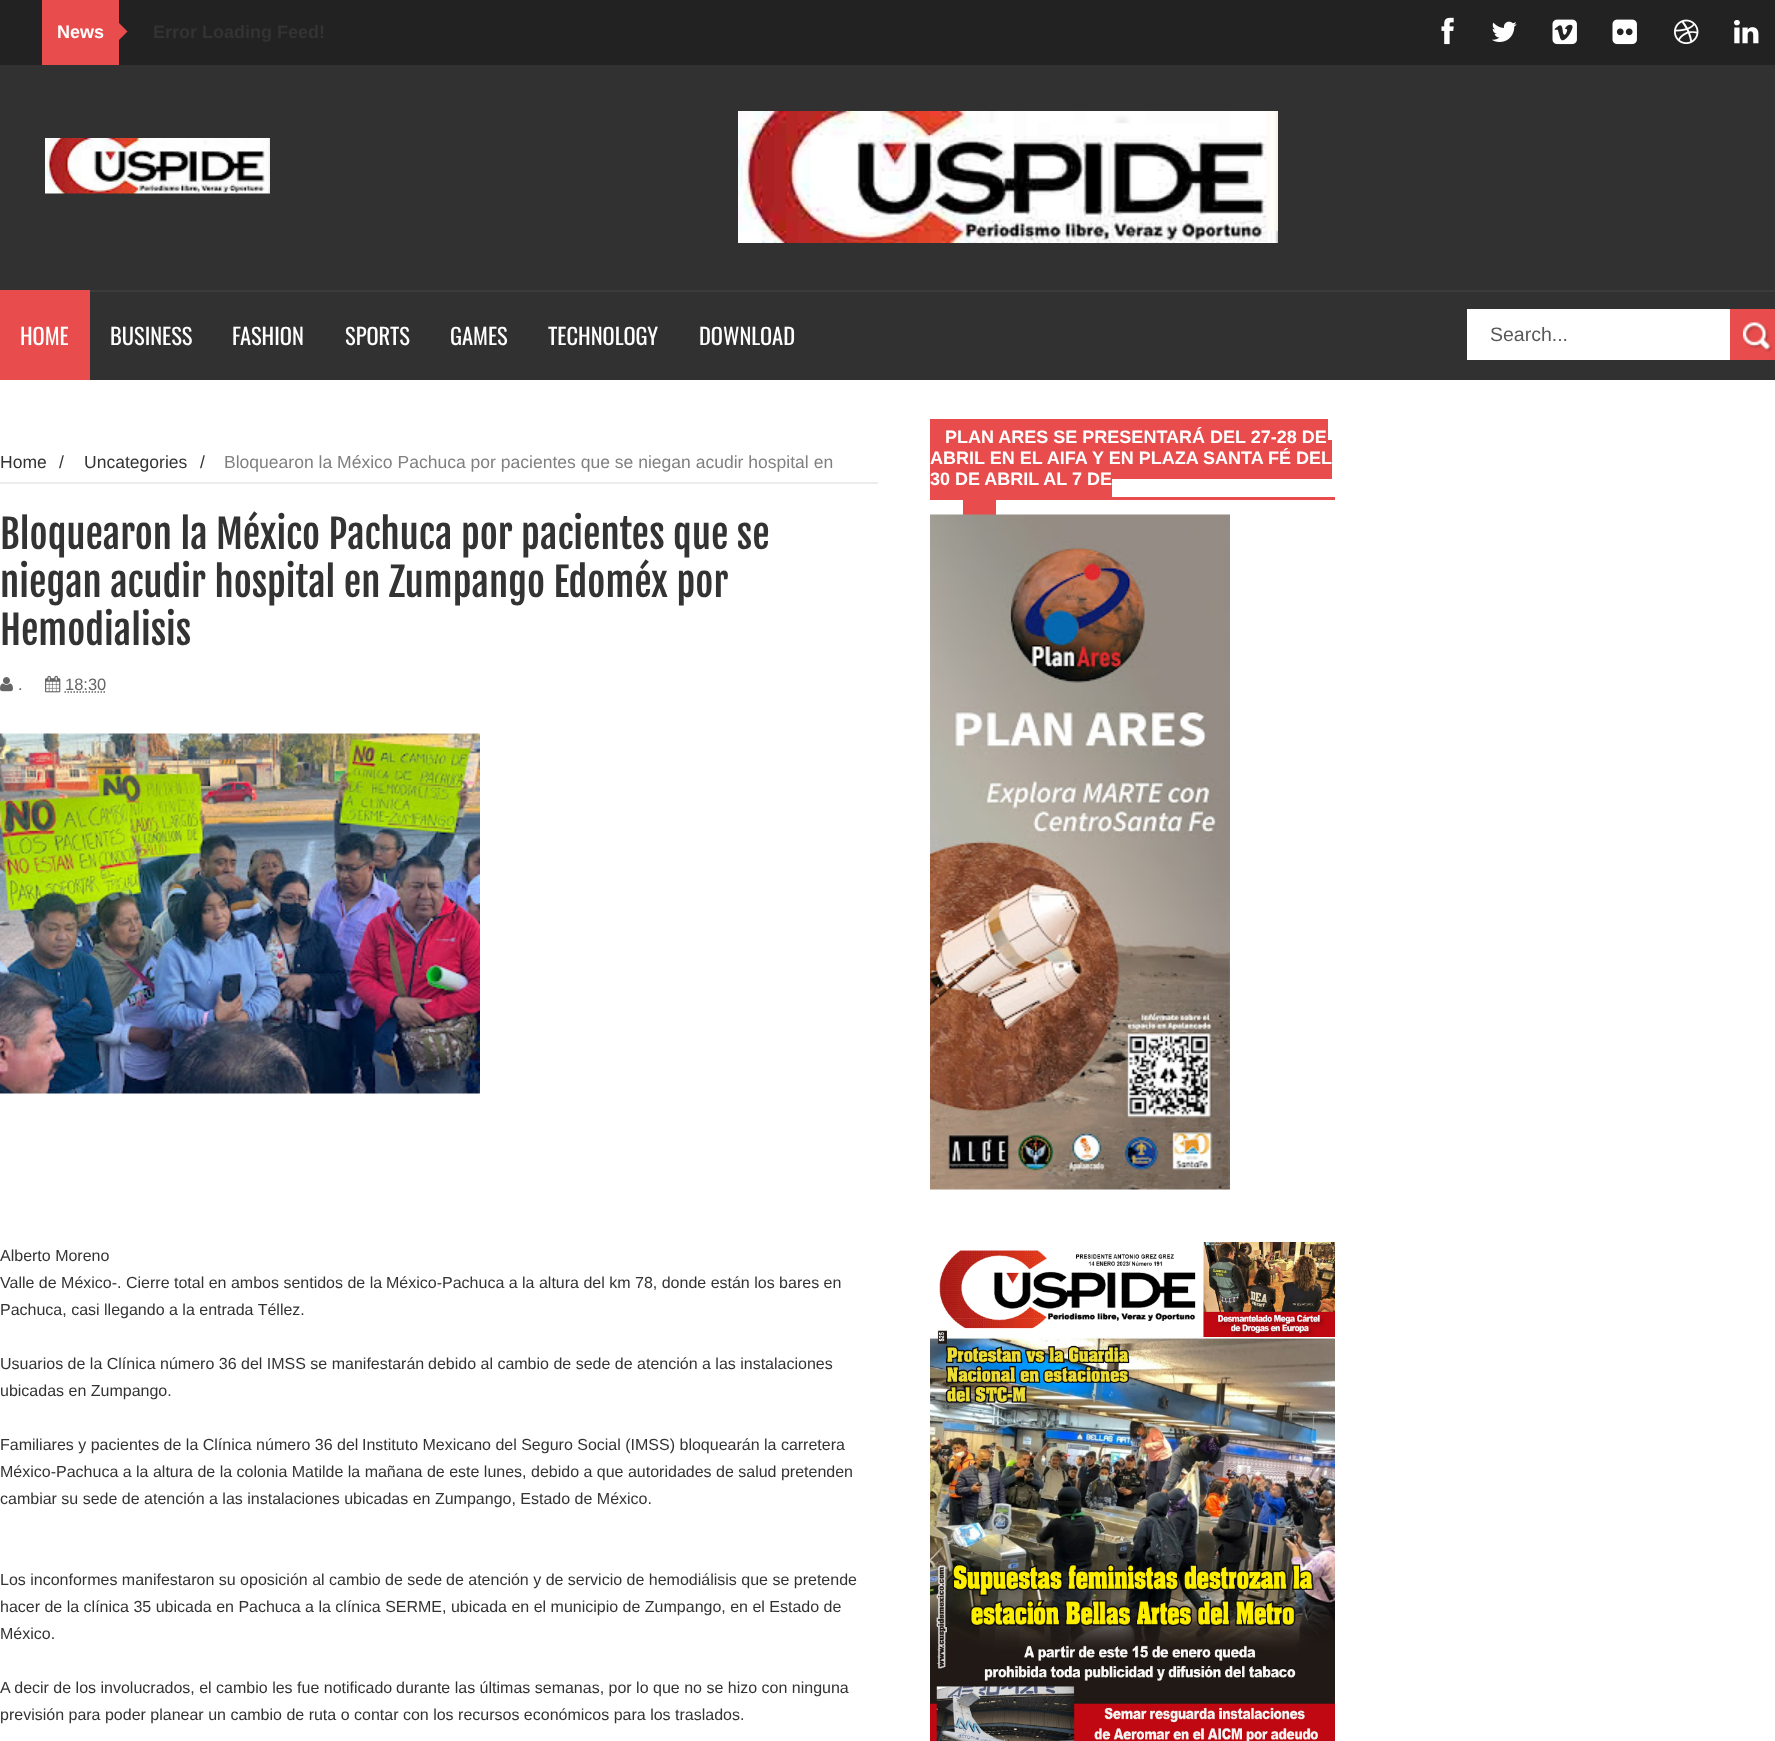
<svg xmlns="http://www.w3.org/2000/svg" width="1775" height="1741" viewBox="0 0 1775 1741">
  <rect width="100%" height="100%" fill="#ffffff"/>
  <rect x="0" y="0" width="1775" height="65" fill="#222222"/>
  <rect x="42" y="0" width="77" height="65" fill="#e84c4c"/>
  <text x="57" y="38" font-family="Liberation Sans" font-size="18" font-weight="bold" fill="#ffffff">News</text>
  <path d="M118.5 40.5V22.5L127.5 31.5Z" fill="#e84c4c"/>
  <text x="153" y="38" font-family="Liberation Sans" font-size="18" font-weight="bold" fill="#333333">Error Loading Feed!</text>
  <image x="1441" y="17" width="13" height="28" href="img1.png"/>
  <image x="1492" y="21" width="25" height="21" href="img2.png"/>
  <image x="1552" y="19" width="25" height="26" href="img3.png"/>
  <image x="1612" y="19" width="25" height="26" href="img4.png"/>
  <image x="1674" y="19" width="25" height="25" href="img5.png"/>
  <image x="1734" y="20" width="25" height="24" href="img6.png"/>
  <rect x="0" y="65" width="1775" height="225" fill="#313131"/>
  <image x="45" y="138" width="225" height="56" href="img7.png"/>
  <image x="738" y="111" width="540" height="132" href="img8.png"/>
  <rect x="90" y="292" width="1685" height="88" fill="#313131"/>
  <rect x="90" y="290" width="1685" height="2" fill="#3b3b3b"/>
  <rect x="0" y="290" width="90" height="90" fill="#e84c4c"/>
  <text x="20" y="345" font-family="Oswald" font-size="22.5" fill="#ffffff">HOME</text>
  <text x="110" y="345" font-family="Oswald" font-size="22.5" fill="#ffffff">BUSINESS</text>
  <text x="232" y="345" font-family="Oswald" font-size="22.5" fill="#ffffff">FASHION</text>
  <text x="345" y="345" font-family="Oswald" font-size="22.5" fill="#ffffff">SPORTS</text>
  <text x="450" y="345" font-family="Oswald" font-size="22.5" fill="#ffffff">GAMES</text>
  <text x="548" y="345" font-family="Oswald" font-size="22.5" fill="#ffffff">TECHNOLOGY</text>
  <text x="699" y="345" font-family="Oswald" font-size="22.5" fill="#ffffff">DOWNLOAD</text>
  <rect x="1467" y="309" width="263" height="51" fill="#ffffff"/>
  <text x="1490" y="341" font-family="Liberation Sans" font-size="19.5" fill="#585858">Search...</text>
  <rect x="1730" y="309" width="45" height="51" fill="#e84c4c"/>
  <image x="1743" y="322" width="30" height="30" href="img9.png"/>
  <rect x="0" y="482" width="878" height="2" fill="#ececec"/>
  <text x="0" y="468" font-family="Liberation Sans" font-size="17.55" fill="#333333">Home</text>
  <text x="59" y="468" font-family="Liberation Sans" font-size="17.55" fill="#333333">/</text>
  <text x="84" y="468" font-family="Liberation Sans" font-size="17.55" fill="#333333">Uncategories</text>
  <text x="200" y="468" font-family="Liberation Sans" font-size="17.55" fill="#333333">/</text>
  <text x="224" y="468" font-family="Liberation Sans" font-size="17.55" fill="#808080">Bloquearon la México Pachuca por pacientes que se niegan acudir hospital en</text>
  <text x="0" y="549" font-family="Fjalla One" font-size="39" fill="#333333">Bloquearon la México Pachuca por pacientes que se</text>
  <text x="0" y="597" font-family="Fjalla One" font-size="39" fill="#333333">niegan acudir hospital en Zumpango Edoméx por</text>
  <text x="0" y="645" font-family="Fjalla One" font-size="39" fill="#333333">Hemodialisis</text>
  <image x="0" y="677" width="13" height="15" href="img10.png"/>
  <text x="18" y="690" font-family="Liberation Sans" font-size="16.5" fill="#666666">.</text>
  <image x="45" y="675" width="16" height="18" href="img11.png"/>
  <text x="65" y="690" font-family="Liberation Sans" font-size="16.5" fill="#666666">18:30</text>
  <path d="M64.5 692H106" fill="none" stroke="#666666" stroke-width="1.5" stroke-dasharray="1.5 1.5"/>
  <image x="0" y="733" width="480" height="361" href="img12.png"/>
  <text x="0" y="1261" font-family="Liberation Sans" font-size="16" fill="#333333">Alberto Moreno</text>
  <text x="0" y="1288" font-family="Liberation Sans" font-size="16" fill="#333333">Valle de México-. Cierre total en ambos sentidos de la</text>
  <text x="386" y="1288" font-family="Liberation Sans" font-size="16" fill="#333333">México-Pachuca a la altura del km 78, donde están los bares en</text>
  <text x="0" y="1315" font-family="Liberation Sans" font-size="16" fill="#333333">Pachuca, casi llegando a la entrada Téllez.</text>
  <text x="0" y="1369" font-family="Liberation Sans" font-size="16" fill="#333333">Usuarios de la Clínica número 36 del IMSS se manifestarán</text>
  <text x="428" y="1369" font-family="Liberation Sans" font-size="16" fill="#333333">debido al cambio de sede de atención a las instalaciones</text>
  <text x="0" y="1396" font-family="Liberation Sans" font-size="16" fill="#333333">ubicadas en Zumpango.</text>
  <text x="0" y="1450" font-family="Liberation Sans" font-size="16" fill="#333333">Familiares y pacientes de la Clínica número 36 del</text>
  <text x="362" y="1450" font-family="Liberation Sans" font-size="16" fill="#333333">Instituto Mexicano del Seguro Social (IMSS) bloquearán la carretera</text>
  <text x="0" y="1477" font-family="Liberation Sans" font-size="16" fill="#333333">México-Pachuca a la altura de la colonia Matilde la mañana de este lunes, debido a que autoridades de salud pretenden</text>
  <text x="0" y="1504" font-family="Liberation Sans" font-size="16" fill="#333333">cambiar su sede de atención a las instalaciones ubicadas en Zumpango, Estado de México.</text>
  <text x="0" y="1585" font-family="Liberation Sans" font-size="16" fill="#333333">Los inconformes manifestaron su oposición al cambio de sede</text>
  <text x="446" y="1585" font-family="Liberation Sans" font-size="16" fill="#333333">de atención y de servicio de hemodiálisis que se pretende</text>
  <text x="0" y="1612" font-family="Liberation Sans" font-size="16" fill="#333333">hacer de la clínica 35 ubicada en Pachuca a la clínica SERME, ubicada en el municipio de Zumpango, en el Estado de</text>
  <text x="0" y="1639" font-family="Liberation Sans" font-size="16" fill="#333333">México.</text>
  <text x="0" y="1693" font-family="Liberation Sans" font-size="16" fill="#333333">A decir de los involucrados, el cambio les fue notificado</text>
  <text x="396" y="1693" font-family="Liberation Sans" font-size="16" fill="#333333">durante las últimas semanas, por lo que no se hizo con ninguna</text>
  <text x="0" y="1720" font-family="Liberation Sans" font-size="16" fill="#333333">previsión para poder planear un cambio de ruta o contar con los recursos económicos para los traslados.</text>
  <rect x="1112" y="497" width="223" height="3" fill="#e84c4c"/>
  <rect x="930" y="419" width="398" height="21" fill="#e84c4c"/>
  <rect x="930" y="440" width="402" height="39" fill="#e84c4c"/>
  <text x="945" y="443" font-family="Liberation Sans" font-size="18" font-weight="bold" fill="#ffffff">PLAN ARES SE PRESENTARÁ DEL 27-28 DE</text>
  <text x="930" y="464" font-family="Liberation Sans" font-size="18" font-weight="bold" fill="#ffffff">ABRIL EN EL AIFA</text>
  <text x="1092" y="464" font-family="Liberation Sans" font-size="18" font-weight="bold" fill="#ffffff">Y EN PLAZA SANTA FÉ DEL</text>
  <rect x="930" y="479" width="182" height="21" fill="#e84c4c"/>
  <text x="930" y="485" font-family="Liberation Sans" font-size="18" font-weight="bold" fill="#ffffff">30 DE ABRIL AL 7 DE</text>
  <rect x="963" y="500" width="33" height="15" fill="#e84c4c"/>
  <image x="930" y="514" width="300" height="676" href="img13.png"/>
  <image x="930" y="1242" width="405" height="499" href="img14.png"/>
</svg>
